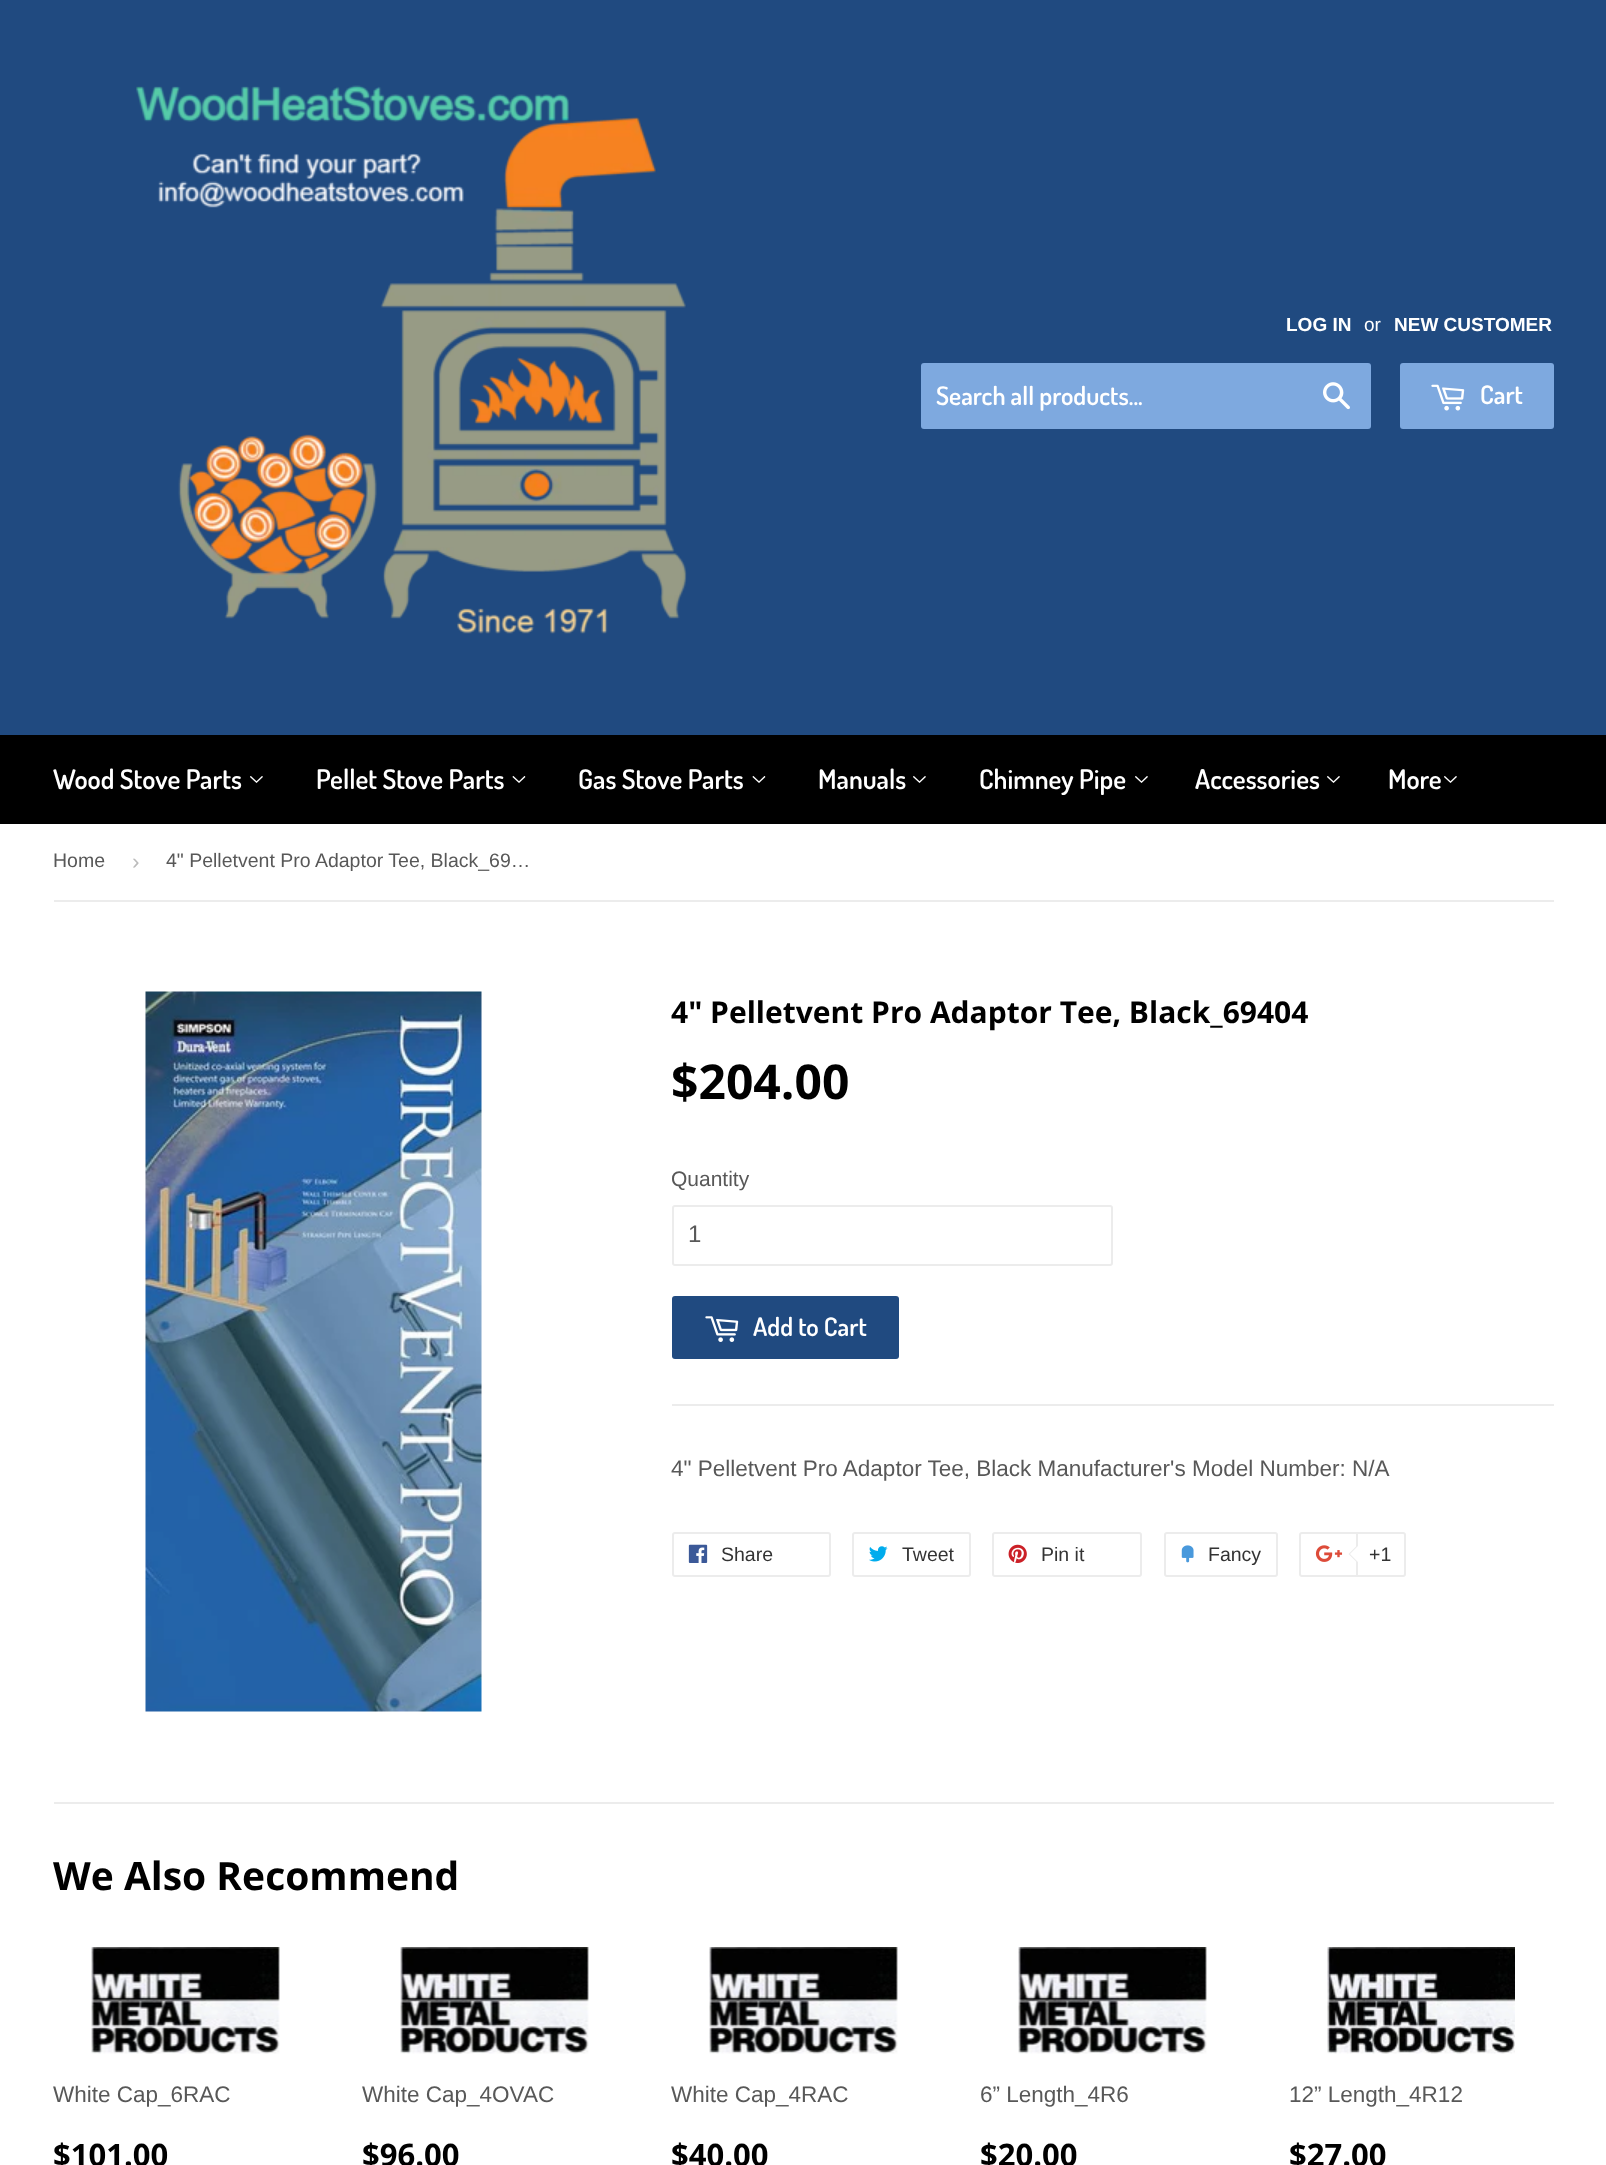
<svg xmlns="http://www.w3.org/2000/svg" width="1606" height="2165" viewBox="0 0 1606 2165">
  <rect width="100%" height="100%" fill="#ffffff"/>
  <rect x="0" y="0" width="1606" height="735" fill="#204a80"/>
  <image x="136" y="85" width="551" height="549" href="img1.png"/>
  <text x="1286" y="331" font-family="Liberation Sans" font-size="19" font-weight="bold" fill="#ffffff">LOG IN</text>
  <text x="1364" y="331" font-family="Liberation Sans" font-size="19" fill="#ffffff">or</text>
  <text x="1394" y="331" font-family="Liberation Sans" font-size="19" font-weight="bold" fill="#ffffff">NEW CUSTOMER</text>
  <rect x="921" y="363" width="450" height="66" rx="3" fill="#7ea9df"/>
  <text x="936" y="405" font-family="Dosis" font-size="25.5" font-weight="600" fill="#ffffff">Search all products...</text>
  <image x="1323" y="382" width="27" height="28" href="img2.png"/>
  <rect x="1400" y="363" width="154" height="66" rx="3" fill="#7ea9df"/>
  <image x="1431" y="384" width="34" height="27" href="img3.png"/>
  <text x="1480" y="404" font-family="Dosis" font-size="25.5" font-weight="600" fill="#ffffff">Cart</text>
  <rect x="0" y="735" width="1606" height="89" fill="#000000"/>
  <text x="53" y="789" font-family="Dosis" font-size="27" font-weight="600" fill="#ffffff">Wood Stove Parts</text>
  <image x="250" y="776" width="13" height="7" href="img4.png"/>
  <text x="316" y="789" font-family="Dosis" font-size="27" font-weight="600" fill="#ffffff">Pellet Stove Parts</text>
  <image x="512" y="776" width="14" height="7" href="img5.png"/>
  <text x="578" y="789" font-family="Dosis" font-size="27" font-weight="600" fill="#ffffff">Gas Stove Parts</text>
  <image x="752" y="776" width="14" height="7" href="img5.png"/>
  <text x="818" y="789" font-family="Dosis" font-size="27" font-weight="600" fill="#ffffff">Manuals</text>
  <image x="913" y="776" width="13" height="7" href="img4.png"/>
  <text x="979" y="789" font-family="Dosis" font-size="27" font-weight="600" fill="#ffffff">Chimney Pipe</text>
  <image x="1135" y="776" width="13" height="7" href="img4.png"/>
  <text x="1195" y="789" font-family="Dosis" font-size="27" font-weight="600" fill="#ffffff">Accessories</text>
  <image x="1327" y="776" width="13" height="7" href="img4.png"/>
  <text x="1388" y="789" font-family="Dosis" font-size="27" font-weight="600" fill="#ffffff">More</text>
  <image x="1444" y="776" width="13" height="7" href="img4.png"/>
  <rect x="54" y="900" width="1500" height="2" fill="#ececec"/>
  <text x="53" y="867" font-family="Liberation Sans" font-size="19.5" fill="#585858">Home</text>
  <text x="132" y="869" font-family="Liberation Sans" font-size="22.5" fill="#bbbbbb">›</text>
  <text x="166" y="867" font-family="Liberation Sans" font-size="19.5" fill="#585858">4" Pelletvent Pro Adaptor Tee, Black_69…</text>
  <image x="145" y="991" width="337" height="721" href="img6.png"/>
  <text x="671" y="1023" font-family="Open Sans" font-size="30" font-weight="bold" fill="#000000">4" Pelletvent Pro Adaptor Tee, Black_69404</text>
  <text x="671" y="1099" font-family="Open Sans" font-size="48" font-weight="bold" fill="#000000">$204.00</text>
  <text x="671" y="1186" font-family="Liberation Sans" font-size="21" fill="#585858">Quantity</text>
  <rect x="673" y="1206" width="439" height="59" rx="2" fill="none" stroke="#ececec" stroke-width="2"/>
  <text x="688" y="1242" font-family="Liberation Sans" font-size="24" fill="#585858">1</text>
  <rect x="672" y="1296" width="227" height="63" rx="3" fill="#204a80"/>
  <image x="705" y="1316" width="34" height="26" href="img7.png"/>
  <text x="753" y="1336" font-family="Dosis" font-size="25.5" font-weight="600" fill="#ffffff">Add to Cart</text>
  <rect x="672" y="1404" width="882" height="2" fill="#ececec"/>
  <text x="671" y="1476" font-family="Liberation Sans" font-size="22.5" fill="#585858">4" Pelletvent Pro Adaptor Tee, Black Manufacturer's Model Number: N/A</text>
  <rect x="673" y="1533" width="157" height="43" rx="2" fill="none" stroke="#ececec" stroke-width="2"/>
  <image x="688" y="1544" width="20" height="19" href="img8.png"/>
  <text x="721" y="1561" font-family="Liberation Sans" font-size="19.5" fill="#333333">Share</text>
  <rect x="853" y="1533" width="117" height="43" rx="2" fill="none" stroke="#ececec" stroke-width="2"/>
  <image x="869" y="1546" width="19" height="16" href="img9.png"/>
  <text x="902" y="1561" font-family="Liberation Sans" font-size="19.5" fill="#333333">Tweet</text>
  <rect x="993" y="1533" width="148" height="43" rx="2" fill="none" stroke="#ececec" stroke-width="2"/>
  <image x="1008" y="1544" width="19" height="19" href="img10.png"/>
  <text x="1041" y="1561" font-family="Liberation Sans" font-size="19.5" fill="#333333">Pin it</text>
  <rect x="1165" y="1533" width="112" height="43" rx="2" fill="none" stroke="#ececec" stroke-width="2"/>
  <image x="1181" y="1545" width="13" height="18" href="img11.png"/>
  <text x="1208" y="1561" font-family="Liberation Sans" font-size="19.5" fill="#333333">Fancy</text>
  <rect x="1300" y="1533" width="103" height="43" rx="2" fill="none" stroke="#ececec" stroke-width="2"/>
  <image x="1315" y="1545" width="28" height="17" href="img12.png"/>
  <path d="M1357 1533H1403C1404 1533 1405 1534 1405 1535V1574C1405 1575 1404 1576 1403 1576H1357Z" fill="#ffffff" stroke="#ececec" stroke-width="2"/>
  <path d="M1357.5 1545V1563L1348.5 1554Z" fill="#ececec"/>
  <path d="M1359 1545V1563L1350 1554Z" fill="#ffffff"/>
  <text x="1369" y="1561" font-family="Liberation Sans" font-size="19.5" fill="#333333">+1</text>
  <rect x="54" y="1802" width="1500" height="2" fill="#ececec"/>
  <text x="53" y="1890" font-family="Open Sans" font-size="39" font-weight="bold" fill="#000000">We Also Recommend</text>
  <image x="91" y="1947" width="189" height="107" href="img13.png"/>
  <text x="53" y="2102" font-family="Liberation Sans" font-size="22.5" fill="#585858">White Cap_6RAC</text>
  <text x="53" y="2166" font-family="Open Sans" font-size="31" font-weight="bold" fill="#000000">$101.00</text>
  <image x="400" y="1947" width="189" height="107" href="img14.png"/>
  <text x="362" y="2102" font-family="Liberation Sans" font-size="22.5" fill="#585858">White Cap_4OVAC</text>
  <text x="362" y="2166" font-family="Open Sans" font-size="31" font-weight="bold" fill="#000000">$96.00</text>
  <image x="709" y="1947" width="189" height="107" href="img13.png"/>
  <text x="671" y="2102" font-family="Liberation Sans" font-size="22.5" fill="#585858">White Cap_4RAC</text>
  <text x="671" y="2166" font-family="Open Sans" font-size="31" font-weight="bold" fill="#000000">$40.00</text>
  <image x="1018" y="1947" width="189" height="107" href="img14.png"/>
  <text x="980" y="2102" font-family="Liberation Sans" font-size="22.5" fill="#585858">6” Length_4R6</text>
  <text x="980" y="2166" font-family="Open Sans" font-size="31" font-weight="bold" fill="#000000">$20.00</text>
  <image x="1327" y="1947" width="188" height="107" href="img15.png"/>
  <text x="1289" y="2102" font-family="Liberation Sans" font-size="22.5" fill="#585858">12” Length_4R12</text>
  <text x="1289" y="2166" font-family="Open Sans" font-size="31" font-weight="bold" fill="#000000">$27.00</text>
</svg>
